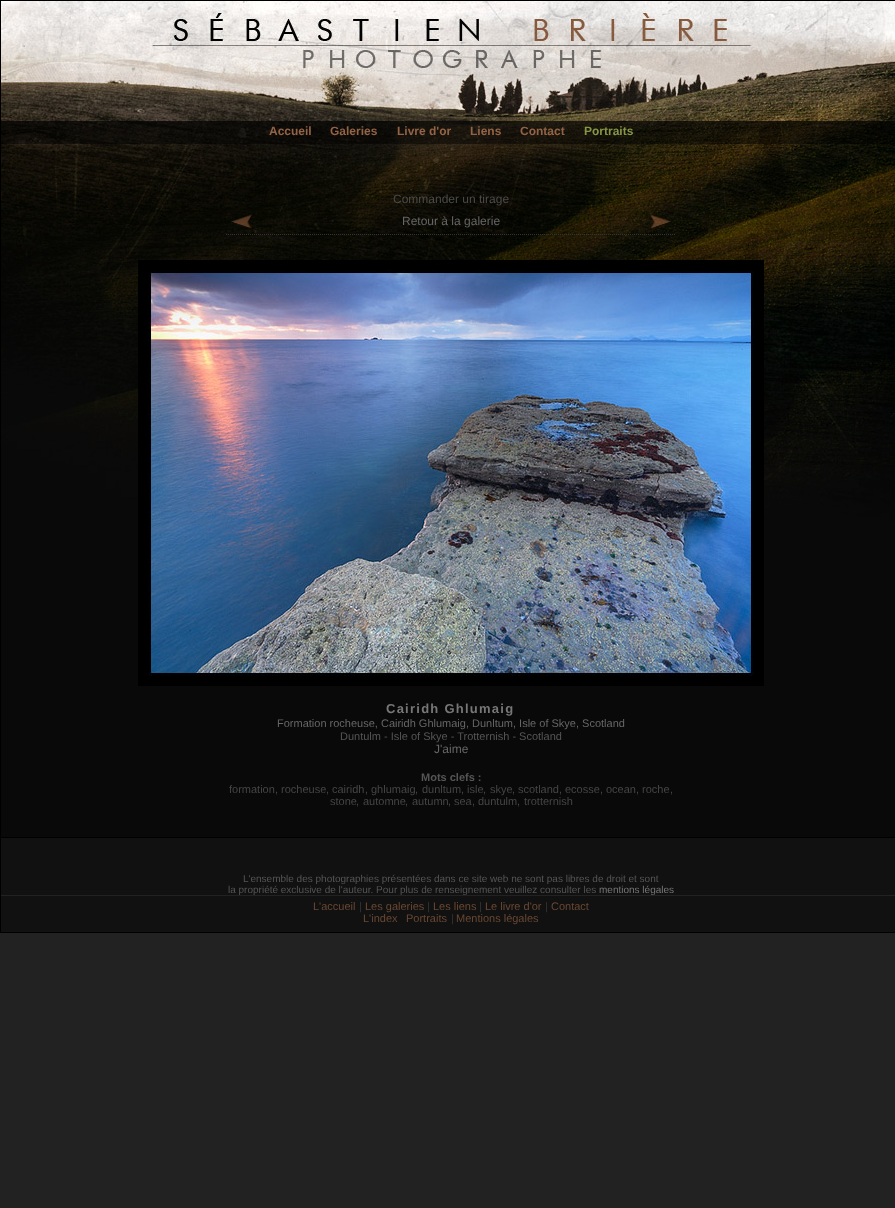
<svg xmlns="http://www.w3.org/2000/svg" width="895" height="1208" viewBox="0 0 895 1208">
  <rect width="100%" height="100%" fill="#222222"/>
  <rect x="1" y="521" width="894" height="411" fill="#111111"/>
  <image x="1" y="1" width="894" height="520" href="img1.png"/>
  <rect x="0.5" y="0.5" width="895" height="932" fill="none" stroke="#000000"/>
  <rect x="1" y="121" width="894" height="23" fill="#000000" fill-opacity="0.7"/>
  <text x="269" y="135" font-family="Liberation Sans" font-size="12" font-weight="bold" fill="#946345">Accueil</text>
  <text x="330" y="135" font-family="Liberation Sans" font-size="12" font-weight="bold" fill="#946345">Galeries</text>
  <text x="397" y="135" font-family="Liberation Sans" font-size="12" font-weight="bold" fill="#946345">Livre d'or</text>
  <text x="470" y="135" font-family="Liberation Sans" font-size="12" font-weight="bold" fill="#946345">Liens</text>
  <text x="520" y="135" font-family="Liberation Sans" font-size="12" font-weight="bold" fill="#946345">Contact</text>
  <text x="584" y="135" font-family="Liberation Sans" font-size="12" font-weight="bold" fill="#879645">Portraits</text>
  <rect x="1" y="144" width="894" height="693" fill="#000000" fill-opacity="0.44"/>
  <rect x="1" y="837" width="894" height="1" fill="#000000"/>
  <text x="393" y="203" font-family="Liberation Sans" font-size="12" fill="#4c4b49">Commander un tirage</text>
  <path d="M226 234.5H676" fill="none" stroke="#333333" stroke-dasharray="1 1"/>
  <image x="231" y="214" width="21" height="15" href="img2.png"/>
  <text x="402" y="225" font-family="Liberation Sans" font-size="12" fill="#666666">Retour à la galerie</text>
  <image x="650" y="214" width="21" height="15" href="img3.png"/>
  <rect x="143" y="265" width="616" height="416" fill="none" stroke="#000000" stroke-width="10"/>
  <image x="148" y="270" width="606" height="406" href="img4.png"/>
  <text x="386" y="713" font-family="Liberation Sans" font-size="13" font-weight="bold" letter-spacing="1.25" fill="#777777">Cairidh Ghlumaig</text>
  <text x="277" y="727" font-family="Liberation Sans" font-size="11" fill="#666666">Formation rocheuse, Cairidh Ghlumaig, Dunltum, Isle of Skye, Scotland</text>
  <text x="340" y="740" font-family="Liberation Sans" font-size="11" fill="#555555">Duntulm - Isle of Skye - Trotternish - Scotland</text>
  <text x="434" y="753" font-family="Liberation Sans" font-size="12" fill="#666666">J'aime</text>
  <text x="421" y="781" font-family="Liberation Sans" font-size="11" font-weight="bold" fill="#555555">Mots clefs :</text>
  <text x="229" y="793" font-family="Liberation Sans" font-size="11" fill="#454545">formation</text>
  <text x="275" y="793" font-family="Liberation Sans" font-size="11" fill="#454545">,</text>
  <text x="281" y="793" font-family="Liberation Sans" font-size="11" fill="#454545">rocheuse</text>
  <text x="326" y="793" font-family="Liberation Sans" font-size="11" fill="#454545">,</text>
  <text x="332" y="793" font-family="Liberation Sans" font-size="11" fill="#454545">cairidh</text>
  <text x="365" y="793" font-family="Liberation Sans" font-size="11" fill="#454545">,</text>
  <text x="371" y="793" font-family="Liberation Sans" font-size="11" fill="#454545">ghlumaig</text>
  <text x="415" y="793" font-family="Liberation Sans" font-size="11" fill="#454545">,</text>
  <text x="422" y="793" font-family="Liberation Sans" font-size="11" fill="#454545">dunltum</text>
  <text x="461" y="793" font-family="Liberation Sans" font-size="11" fill="#454545">,</text>
  <text x="467" y="793" font-family="Liberation Sans" font-size="11" fill="#454545">isle</text>
  <text x="483" y="793" font-family="Liberation Sans" font-size="11" fill="#454545">,</text>
  <text x="490" y="793" font-family="Liberation Sans" font-size="11" fill="#454545">skye</text>
  <text x="512" y="793" font-family="Liberation Sans" font-size="11" fill="#454545">,</text>
  <text x="518" y="793" font-family="Liberation Sans" font-size="11" fill="#454545">scotland</text>
  <text x="559" y="793" font-family="Liberation Sans" font-size="11" fill="#454545">,</text>
  <text x="565" y="793" font-family="Liberation Sans" font-size="11" fill="#454545">ecosse</text>
  <text x="600" y="793" font-family="Liberation Sans" font-size="11" fill="#454545">,</text>
  <text x="606" y="793" font-family="Liberation Sans" font-size="11" fill="#454545">ocean</text>
  <text x="636" y="793" font-family="Liberation Sans" font-size="11" fill="#454545">,</text>
  <text x="642" y="793" font-family="Liberation Sans" font-size="11" fill="#454545">roche</text>
  <text x="670" y="793" font-family="Liberation Sans" font-size="11" fill="#454545">,</text>
  <text x="330" y="805" font-family="Liberation Sans" font-size="11" fill="#454545">stone</text>
  <text x="356" y="805" font-family="Liberation Sans" font-size="11" fill="#454545">,</text>
  <text x="363" y="805" font-family="Liberation Sans" font-size="11" fill="#454545">automne</text>
  <text x="405" y="805" font-family="Liberation Sans" font-size="11" fill="#454545">,</text>
  <text x="412" y="805" font-family="Liberation Sans" font-size="11" fill="#454545">autumn</text>
  <text x="448" y="805" font-family="Liberation Sans" font-size="11" fill="#454545">,</text>
  <text x="454" y="805" font-family="Liberation Sans" font-size="11" fill="#454545">sea</text>
  <text x="472" y="805" font-family="Liberation Sans" font-size="11" fill="#454545">,</text>
  <text x="478" y="805" font-family="Liberation Sans" font-size="11" fill="#454545">duntulm</text>
  <text x="517" y="805" font-family="Liberation Sans" font-size="11" fill="#454545">,</text>
  <text x="524" y="805" font-family="Liberation Sans" font-size="11" fill="#454545">trotternish</text>
  <text x="243" y="882" font-family="Liberation Sans" font-size="10" fill="#555555">L'ensemble des photographies présentées dans ce site web ne sont pas libres de droit et sont</text>
  <rect x="1" y="895" width="894" height="1" fill="#222222"/>
  <text x="228" y="893" font-family="Liberation Sans" font-size="10" fill="#555555">la propriété exclusive de l'auteur. Pour plus de renseignement veuillez consulter les</text>
  <text x="599" y="893" font-family="Liberation Sans" font-size="10" fill="#777777">mentions légales</text>
  <text x="313" y="910" font-family="Liberation Sans" font-size="11" fill="#694732">L'accueil</text>
  <text x="359" y="910" font-family="Liberation Sans" font-size="11" fill="#333333">|</text>
  <text x="365" y="910" font-family="Liberation Sans" font-size="11" fill="#694732">Les galeries</text>
  <text x="427" y="910" font-family="Liberation Sans" font-size="11" fill="#333333">|</text>
  <text x="433" y="910" font-family="Liberation Sans" font-size="11" fill="#694732">Les liens</text>
  <text x="479" y="910" font-family="Liberation Sans" font-size="11" fill="#333333">|</text>
  <text x="485" y="910" font-family="Liberation Sans" font-size="11" fill="#694732">Le livre d'or</text>
  <text x="545" y="910" font-family="Liberation Sans" font-size="11" fill="#333333">|</text>
  <text x="551" y="910" font-family="Liberation Sans" font-size="11" fill="#694732">Contact</text>
  <text x="363" y="922" font-family="Liberation Sans" font-size="11" fill="#694732">L'index</text>
  <text x="406" y="922" font-family="Liberation Sans" font-size="11" fill="#694732">Portraits</text>
  <text x="451" y="922" font-family="Liberation Sans" font-size="11" fill="#333333">|</text>
  <text x="456" y="922" font-family="Liberation Sans" font-size="11" fill="#694732">Mentions légales</text>
</svg>
